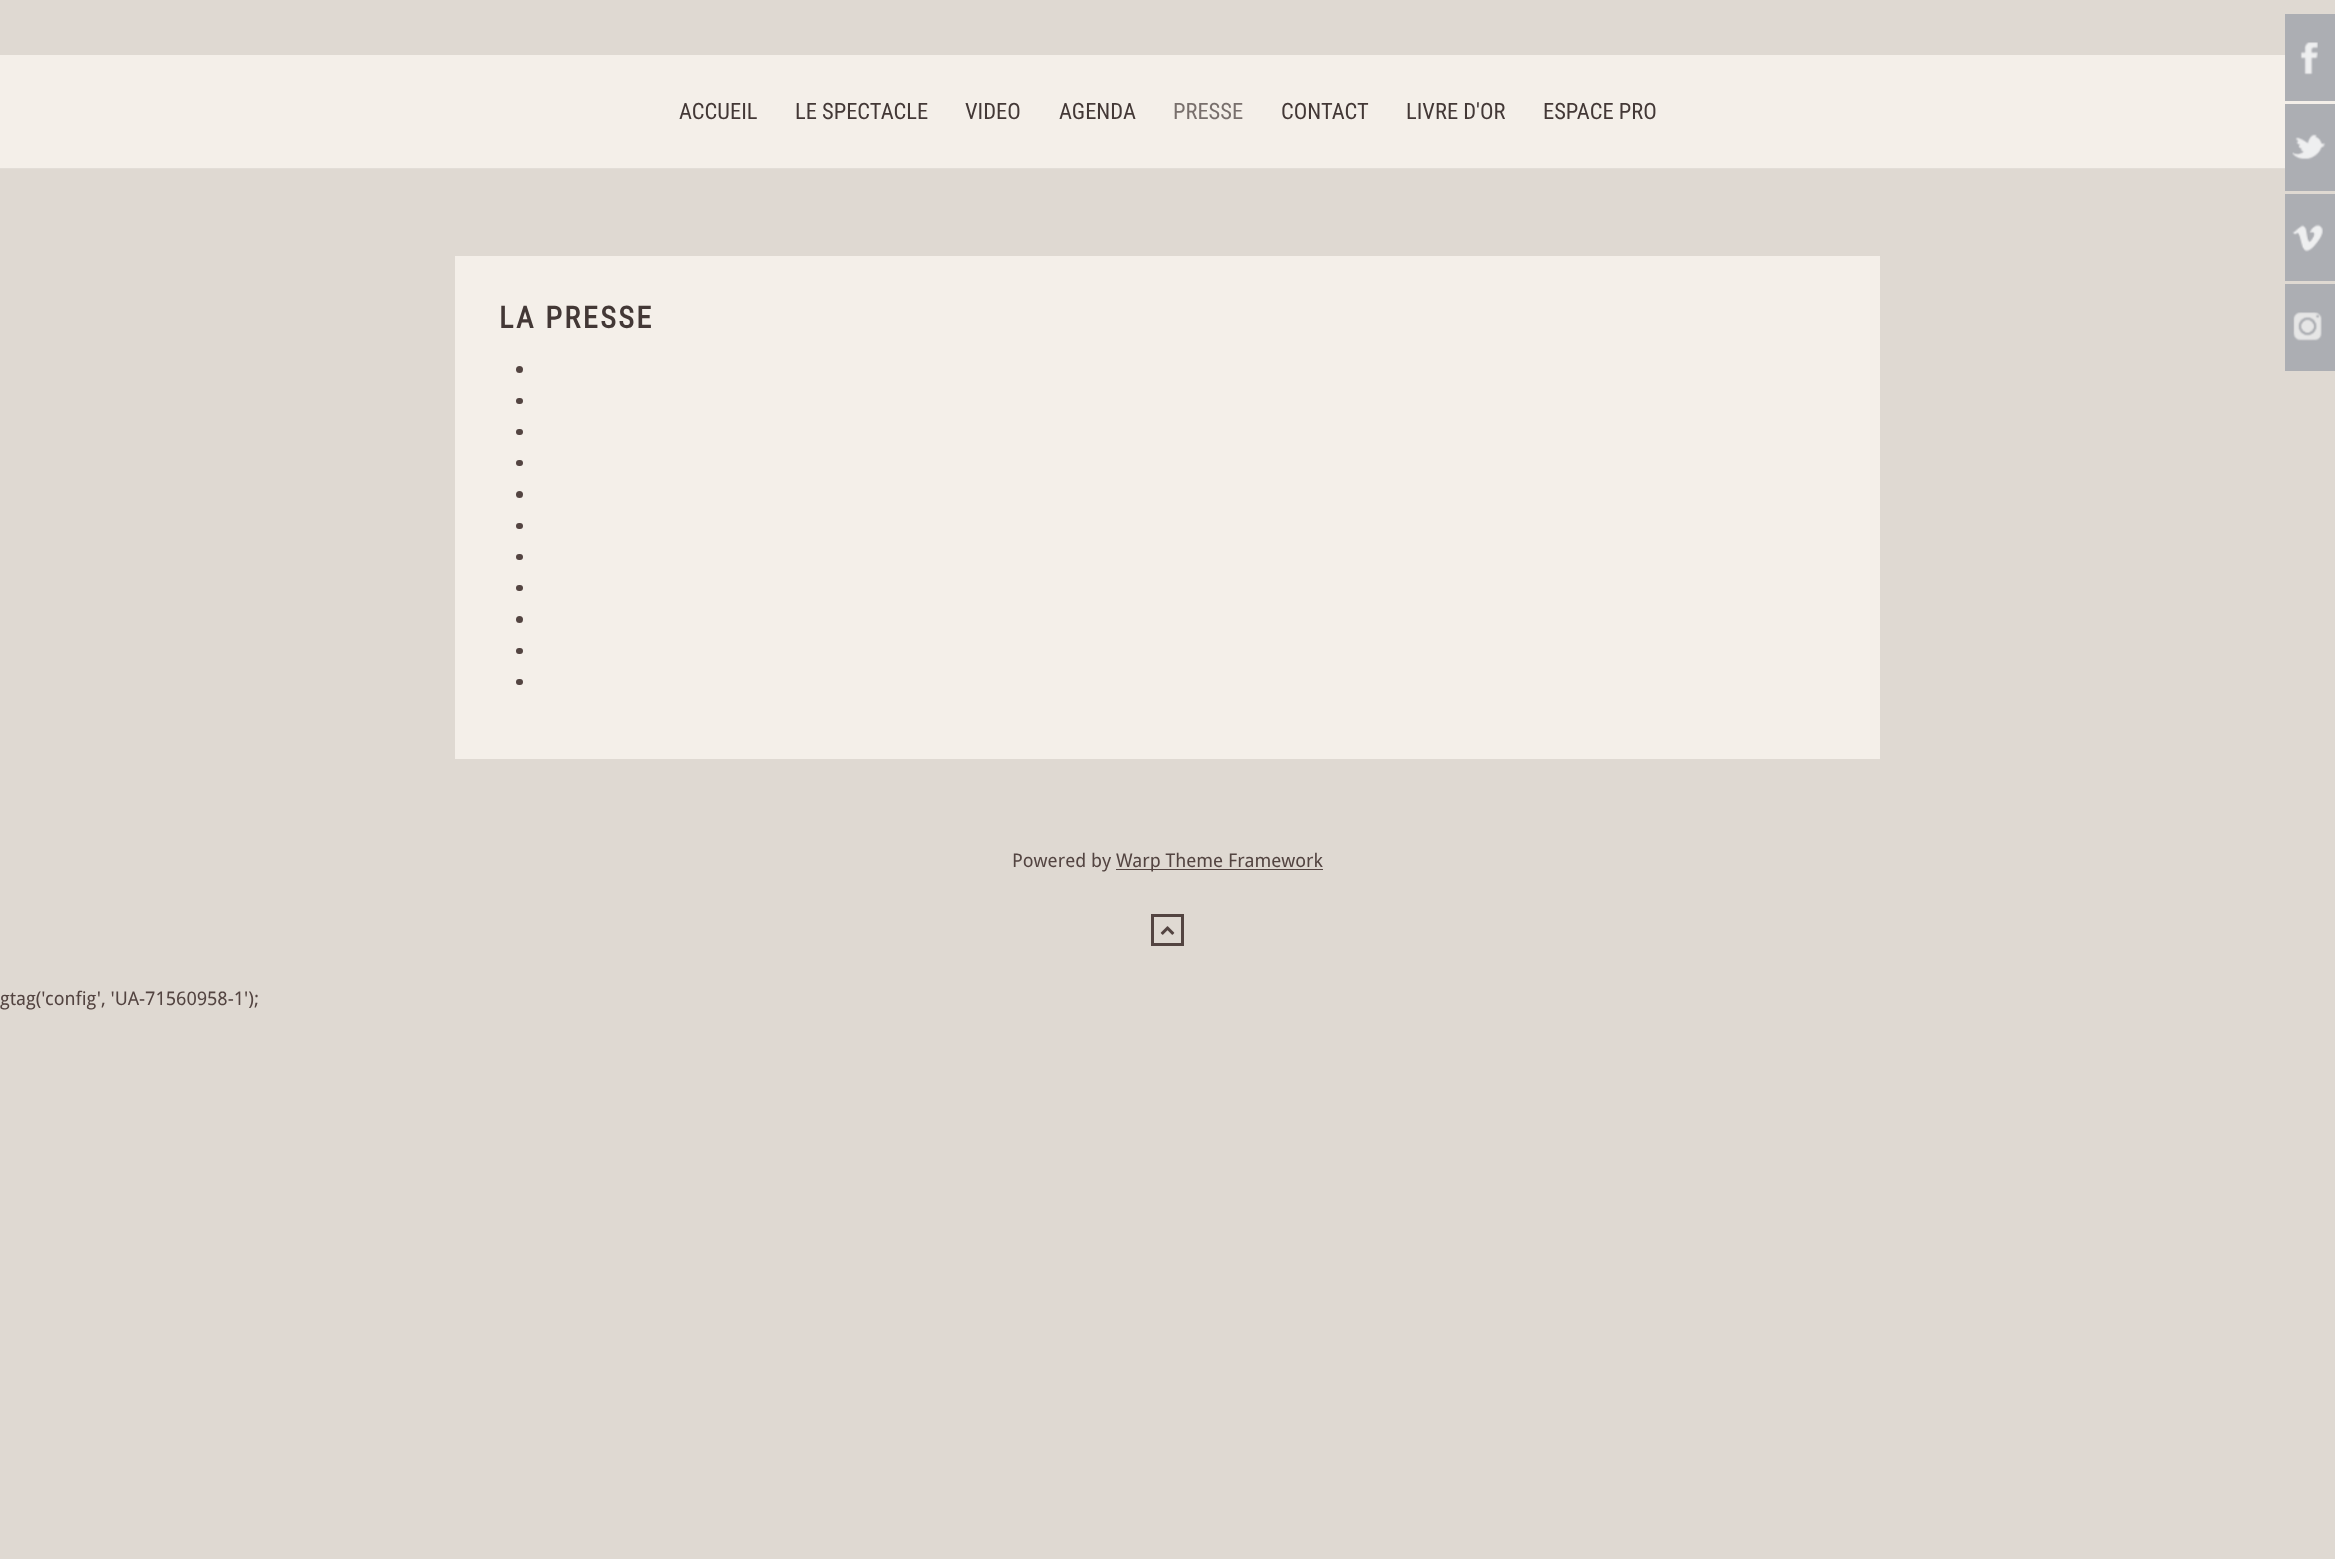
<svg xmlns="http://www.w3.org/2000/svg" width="2335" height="1559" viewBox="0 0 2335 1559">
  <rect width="100%" height="100%" fill="#dfd9d2"/>
  <rect x="0" y="55" width="2335" height="113" fill="#f4efe9"/>
  <rect x="0" y="168" width="2285" height="1" fill="#e2ddd7"/>
  <text x="679" y="119" font-family="Roboto Condensed" font-size="22.5" fill="#433836">ACCUEIL</text>
  <text x="795" y="119" font-family="Roboto Condensed" font-size="22.5" fill="#433836">LE SPECTACLE</text>
  <text x="965" y="119" font-family="Roboto Condensed" font-size="22.5" fill="#433836">VIDEO</text>
  <text x="1059" y="119" font-family="Roboto Condensed" font-size="22.5" fill="#433836">AGENDA</text>
  <text x="1173" y="119" font-family="Roboto Condensed" font-size="22.5" fill="#786f6c">PRESSE</text>
  <text x="1281" y="119" font-family="Roboto Condensed" font-size="22.5" fill="#433836">CONTACT</text>
  <text x="1406" y="119" font-family="Roboto Condensed" font-size="22.5" fill="#433836">LIVRE D'OR</text>
  <text x="1543" y="119" font-family="Roboto Condensed" font-size="22.5" fill="#433836">ESPACE PRO</text>
  <rect x="2285" y="14" width="50" height="87" fill="#acaeb3"/>
  <image x="2300" y="42" width="18" height="33" href="img1.png"/>
  <rect x="2285" y="104" width="50" height="87" fill="#acaeb3"/>
  <image x="2292" y="134" width="34" height="26" href="img2.png"/>
  <rect x="2285" y="194" width="50" height="87" fill="#acaeb3"/>
  <image x="2292" y="224" width="31" height="28" href="img3.png"/>
  <rect x="2285" y="284" width="50" height="87" fill="#acaeb3"/>
  <image x="2293" y="312" width="29" height="29" href="img4.png"/>
  <rect x="455" y="256" width="1425" height="503" fill="#f4efe9"/>
  <text x="499" y="328" font-family="Roboto Condensed" font-size="30" font-weight="bold" letter-spacing="2.5" fill="#433836">LA PRESSE</text>
  <circle cx="519.5" cy="369.5" r="3.5" fill="#534441"/>
  <rect x="516" y="398" width="7" height="6" rx="3" fill="#534441"/>
  <rect x="516" y="429" width="7" height="6" rx="3" fill="#534441"/>
  <rect x="516" y="460" width="7" height="6" rx="3" fill="#534441"/>
  <circle cx="519.5" cy="494.5" r="3.5" fill="#534441"/>
  <rect x="516" y="523" width="7" height="6" rx="3" fill="#534441"/>
  <rect x="516" y="554" width="7" height="6" rx="3" fill="#534441"/>
  <rect x="516" y="585" width="7" height="6" rx="3" fill="#534441"/>
  <circle cx="519.5" cy="619.5" r="3.5" fill="#534441"/>
  <rect x="516" y="648" width="7" height="6" rx="3" fill="#534441"/>
  <rect x="516" y="679" width="7" height="6" rx="3" fill="#534441"/>
  <text x="1012" y="867" font-family="Droid Sans" font-size="18.75" fill="#534441">Powered by</text>
  <rect x="1116" y="869" width="207" height="1" fill="#534441"/>
  <text x="1116" y="867" font-family="Droid Sans" font-size="18.75" fill="#534441">Warp Theme Framework</text>
  <rect x="1152.5" y="915.5" width="30" height="29" fill="none" stroke="#534441" stroke-width="3"/>
  <image x="1160" y="926" width="15" height="9" href="img5.png"/>
  <text x="0" y="1005" font-family="Droid Sans" font-size="18.75" fill="#534441">gtag('config', 'UA-71560958-1');</text>
</svg>
